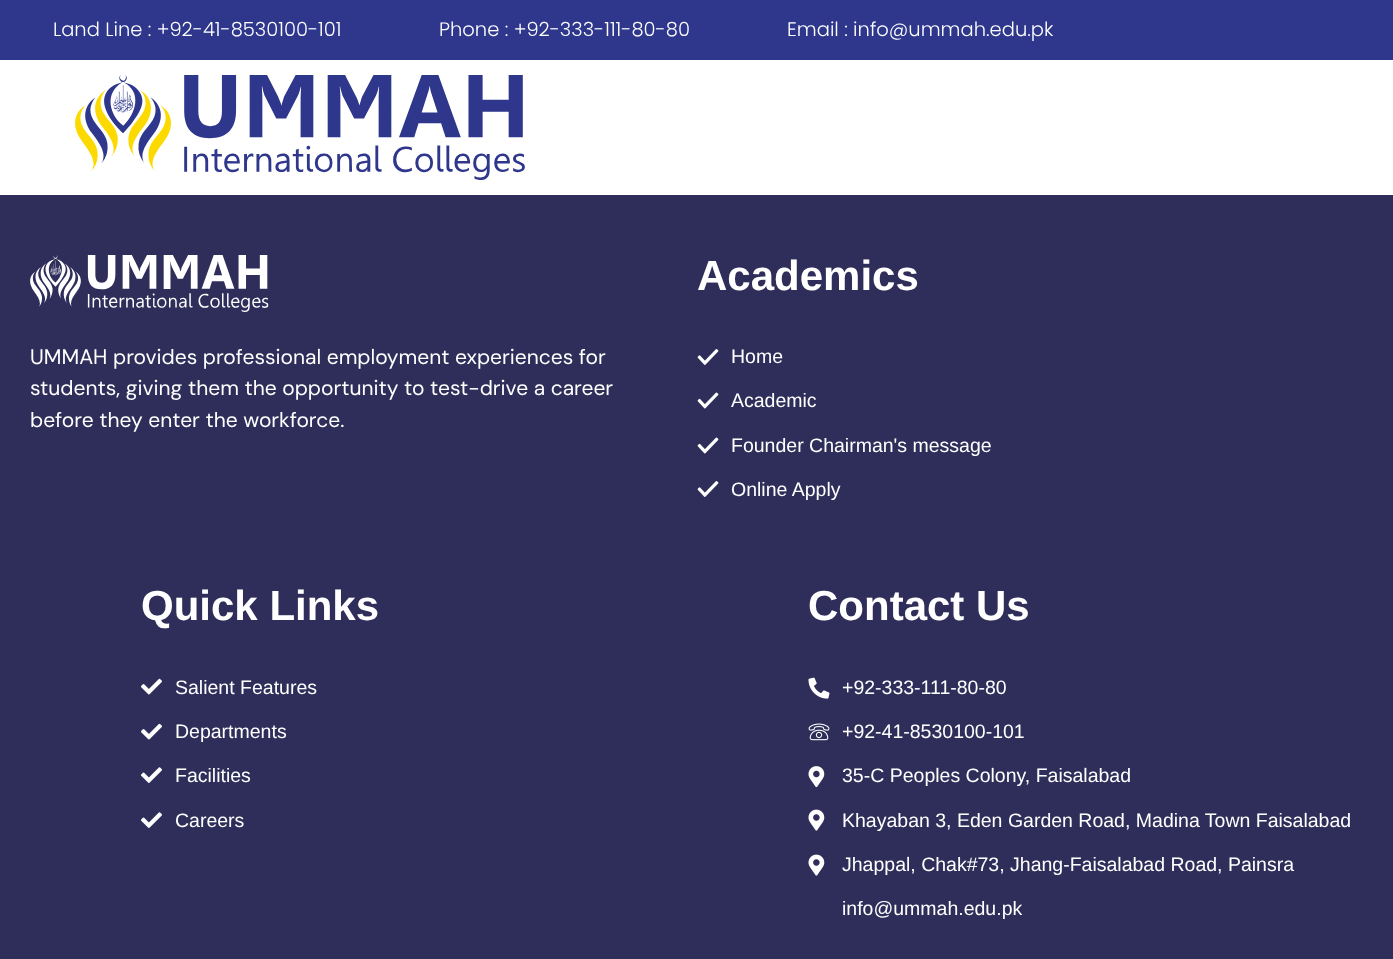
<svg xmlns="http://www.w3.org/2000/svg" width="1393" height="959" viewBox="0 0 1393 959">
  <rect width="100%" height="100%" fill="#2f2e5a"/>
  <rect x="0" y="0" width="1393" height="60" fill="#2e378c"/>
  <text x="53" y="36" font-family="Poppins" font-size="19.5" font-weight="300" fill="#ffffff">Land Line : +92-41-8530100-101</text>
  <text x="439" y="36" font-family="Poppins" font-size="19.5" font-weight="300" fill="#ffffff">Phone : +92-333-111-80-80</text>
  <text x="787" y="36" font-family="Poppins" font-size="19.5" font-weight="300" fill="#ffffff">Email : info@ummah.edu.pk</text>
  <rect x="0" y="60" width="1393" height="135" fill="#ffffff"/>
  <image x="75" y="75" width="450" height="105" href="img1.png"/>
  <image x="30" y="255" width="239" height="57" href="img2.png"/>
  <text x="30" y="364" font-family="DM Sans" font-size="21" fill="#ffffff">UMMAH provides professional employment experiences for</text>
  <text x="30" y="395" font-family="DM Sans" font-size="21" fill="#ffffff">students, giving them the opportunity to test-drive a career</text>
  <text x="30" y="427" font-family="DM Sans" font-size="21" fill="#ffffff">before they enter the workforce.</text>
  <text x="697" y="290" font-family="Liberation Sans" font-size="42" font-weight="bold" fill="#ffffff">Academics</text>
  <image x="697" y="349" width="22" height="16" href="img3.png"/>
  <text x="731" y="363" font-family="Liberation Sans" font-size="19.5" fill="#ffffff">Home</text>
  <image x="697" y="392" width="22" height="17" href="img4.png"/>
  <text x="731" y="407" font-family="Liberation Sans" font-size="19.5" fill="#ffffff">Academic</text>
  <image x="697" y="437" width="22" height="17" href="img4.png"/>
  <text x="731" y="452" font-family="Liberation Sans" font-size="19.5" fill="#ffffff">Founder Chairman's message</text>
  <image x="697" y="481" width="22" height="16" href="img3.png"/>
  <text x="731" y="496" font-family="Liberation Sans" font-size="19.5" fill="#ffffff">Online Apply</text>
  <text x="141" y="620" font-family="Liberation Sans" font-size="42" font-weight="bold" fill="#ffffff">Quick Links</text>
  <image x="141" y="678" width="21" height="17" href="img5.png"/>
  <text x="175" y="694" font-family="Liberation Sans" font-size="19.5" fill="#ffffff">Salient Features</text>
  <image x="141" y="723" width="21" height="17" href="img5.png"/>
  <text x="175" y="738" font-family="Liberation Sans" font-size="19.5" fill="#ffffff">Departments</text>
  <image x="141" y="767" width="21" height="16" href="img6.png"/>
  <text x="175" y="782" font-family="Liberation Sans" font-size="19.5" fill="#ffffff">Facilities</text>
  <image x="141" y="812" width="21" height="16" href="img6.png"/>
  <text x="175" y="827" font-family="Liberation Sans" font-size="19.5" fill="#ffffff">Careers</text>
  <text x="808" y="620" font-family="Liberation Sans" font-size="42" font-weight="bold" fill="#ffffff">Contact Us</text>
  <image x="808" y="677" width="22" height="22" href="img7.png"/>
  <text x="842" y="694" font-family="Liberation Sans" font-size="19.5" fill="#ffffff">+92-333-111-80-80</text>
  <image x="808" y="723" width="22" height="18" href="img8.png"/>
  <text x="842" y="738" font-family="Liberation Sans" font-size="19.5" fill="#ffffff">+92-41-8530100-101</text>
  <image x="808" y="766" width="17" height="22" href="img9.png"/>
  <text x="842" y="782" font-family="Liberation Sans" font-size="19.5" fill="#ffffff">35-C Peoples Colony, Faisalabad</text>
  <image x="808" y="809" width="17" height="22" href="img10.png"/>
  <text x="842" y="827" font-family="Liberation Sans" font-size="19.5" fill="#ffffff">Khayaban 3, Eden Garden Road, Madina Town Faisalabad</text>
  <image x="808" y="854" width="17" height="22" href="img10.png"/>
  <text x="842" y="871" font-family="Liberation Sans" font-size="19.5" fill="#ffffff">Jhappal, Chak#73, Jhang-Faisalabad Road, Painsra</text>
  <text x="842" y="915" font-family="Liberation Sans" font-size="19.5" fill="#ffffff">info@ummah.edu.pk</text>
</svg>
